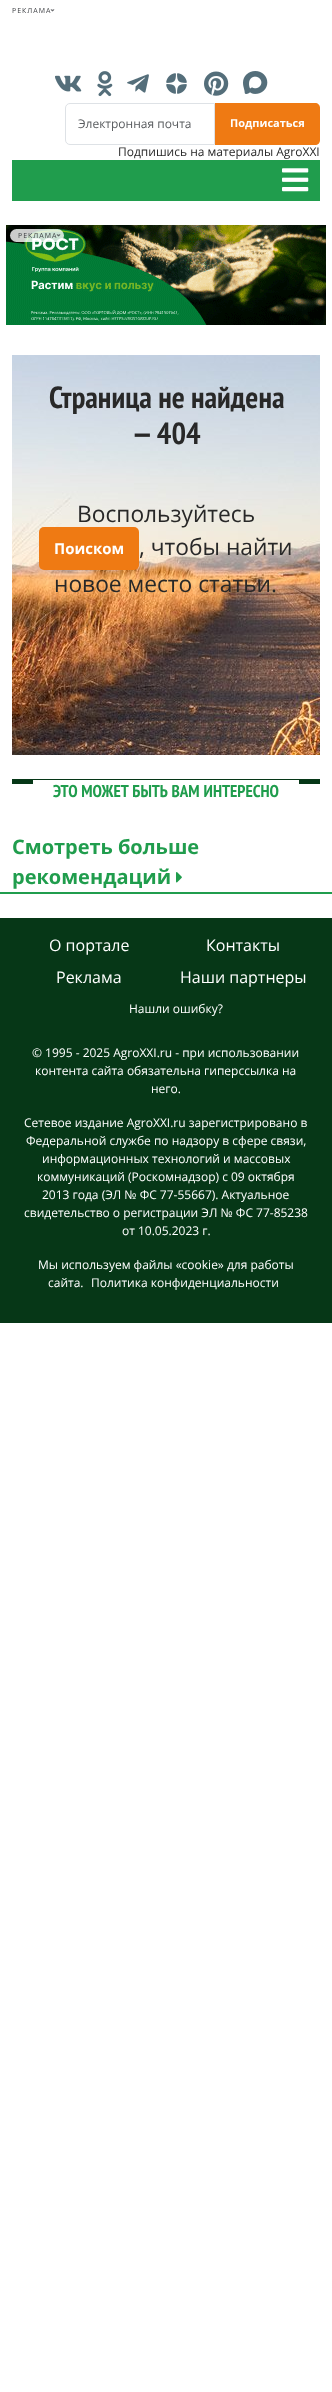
<svg xmlns="http://www.w3.org/2000/svg" width="332" height="2392" viewBox="0 0 332 2392">
  <rect width="100%" height="100%" fill="#ffffff"/>
  <text x="12" y="13" font-family="Open Sans" font-size="7" letter-spacing="1" fill="#3a3c40">РЕКЛАМА</text>
  <path d="M54.5 9.5L52.5 11.5V10L53 9.5Z" fill="#3a3c40"/>
  <path d="M52.5 11.5L50.5 9.5H52L52.5 10Z" fill="#3a3c40"/>
  <image x="55" y="75" width="27" height="17" href="img1.png"/>
  <image x="97" y="71" width="16" height="26" href="img2.png"/>
  <image x="127" y="74" width="22" height="19" href="img3.png"/>
  <image x="166" y="73" width="21" height="21" href="img4.png"/>
  <image x="204" y="71" width="25" height="25" href="img5.png"/>
  <image x="243" y="71" width="25" height="23" href="img6.png"/>
  <path d="M70 103.5H214.5V144.5H70C67.5 144.5 65.5 142.5 65.5 140V108C65.5 105.5 67.5 103.5 70 103.5Z" fill="none" stroke="#dee2e6"/>
  <text x="78" y="128" font-family="Open Sans" font-size="12" fill="#595c5f">Электронная почта</text>
  <path d="M215 103H315C318 103 320 105 320 108V140C320 143 318 145 315 145H215Z" fill="#ef7a13"/>
  <text x="230" y="127" font-family="Open Sans" font-size="11" font-weight="bold" fill="#ffffff">Подписаться</text>
  <text x="118" y="156" font-family="Open Sans" font-size="12" fill="#282828">Подпишись на материалы AgroXXI</text>
  <rect x="12" y="160" width="308" height="41" fill="#209d4d"/>
  <image x="282" y="168" width="27" height="24" href="img7.png"/>
  <image x="6" y="225" width="320" height="100" href="img8.png"/>
  <rect x="10" y="229" width="54" height="13" rx="6.5" fill="#ffffff" fill-opacity="0.8"/>
  <text x="18" y="238" font-family="Open Sans" font-size="7" letter-spacing="1" fill="#3a3c40">РЕКЛАМА</text>
  <path d="M60.5 234.5L58.5 236.5V235L59 234.5Z" fill="#3a3c40"/>
  <path d="M58.5 236.5L56.5 234.5H58L58.5 235Z" fill="#3a3c40"/>
  <image x="12" y="355" width="308" height="400" href="img9.png"/>
  <text x="49" y="408" font-family="PT Sans Narrow" font-size="30.5" font-weight="bold" fill="#282828">Страница не найдена</text>
  <text x="132" y="444" word-spacing="-2" font-family="PT Sans Narrow" font-size="30.5" font-weight="bold" fill="#282828">— 404</text>
  <text x="77" y="522" font-family="Open Sans" font-size="22.75" fill="#282828">Воспользуйтесь</text>
  <rect x="39" y="527" width="100" height="43" rx="5" fill="#ef7a13"/>
  <text x="54" y="554" font-family="Open Sans" font-size="15" font-weight="bold" fill="#ffffff">Поиском</text>
  <text x="139" y="555" font-family="Open Sans" font-size="22.75" fill="#282828">, чтобы найти</text>
  <text x="54" y="592" font-family="Open Sans" font-size="22.75" fill="#282828">новое место статьи.</text>
  <rect x="12" y="779" width="308" height="5" fill="#063717"/>
  <text x="53" y="797" word-spacing="0.5" font-family="PT Sans Narrow" font-size="17" font-weight="bold" fill="#209d4d">ЭТО МОЖЕТ БЫТЬ ВАМ ИНТЕРЕСНО</text>
  <rect x="33" y="780" width="266" height="4" fill="#ffffff"/>
  <rect x="0" y="892" width="332" height="2" fill="#209d4d"/>
  <text x="12" y="854" font-family="Open Sans" font-size="20" font-weight="bold" fill="#209d4d">Смотреть больше</text>
  <text x="12" y="884" font-family="Open Sans" font-size="20" font-weight="bold" fill="#209d4d">рекомендаций</text>
  <image x="176" y="872" width="6" height="11" href="img10.png"/>
  <rect x="0" y="918" width="332" height="405" fill="#063717"/>
  <text x="49" y="951" font-family="Open Sans" font-size="16" fill="#ffffff">О портале</text>
  <text x="206" y="951" font-family="Open Sans" font-size="16" fill="#ffffff">Контакты</text>
  <text x="56" y="983" font-family="Open Sans" font-size="16" fill="#ffffff">Реклама</text>
  <text x="180" y="983" font-family="Open Sans" font-size="16" fill="#ffffff">Наши партнеры</text>
  <text x="129" y="1013" font-family="Open Sans" font-size="12" fill="#ffffff">Нашли ошибку?</text>
  <text x="32" y="1057" font-family="Open Sans" font-size="12" fill="#ffffff">© 1995 - 2025 AgroXXI.ru - при использовании</text>
  <text x="35" y="1075" font-family="Open Sans" font-size="12" fill="#ffffff">контента сайта обязательна гиперссылка на</text>
  <text x="151" y="1093" font-family="Open Sans" font-size="12" fill="#ffffff">него.</text>
  <text x="24" y="1127" font-family="Open Sans" font-size="12" fill="#ffffff">Сетевое издание AgroXXI.ru зарегистрировано в</text>
  <text x="26" y="1145" font-family="Open Sans" font-size="12" fill="#ffffff">Федеральной службе по надзору в сфере связи,</text>
  <text x="42" y="1163" font-family="Open Sans" font-size="12" fill="#ffffff">информационных технологий и массовых</text>
  <text x="37" y="1181" font-family="Open Sans" font-size="12" fill="#ffffff">коммуникаций (Роскомнадзор) с 09 октября</text>
  <text x="42" y="1199" font-family="Open Sans" font-size="12" fill="#ffffff">2013 года (ЭЛ № ФС 77-55667). Актуальное</text>
  <text x="24" y="1217" font-family="Open Sans" font-size="12" fill="#ffffff">свидетельство о регистрации ЭЛ № ФС 77-85238</text>
  <text x="122" y="1235" font-family="Open Sans" font-size="12" fill="#ffffff">от 10.05.2023 г.</text>
  <text x="38" y="1269" font-family="Open Sans" font-size="12" fill="#ffffff">Мы используем файлы «cookie» для работы</text>
  <text x="48" y="1287" font-family="Open Sans" font-size="12" fill="#ffffff">сайта.</text>
  <text x="91" y="1287" font-family="Open Sans" font-size="12" fill="#ffffff">Политика конфиденциальности</text>
</svg>
